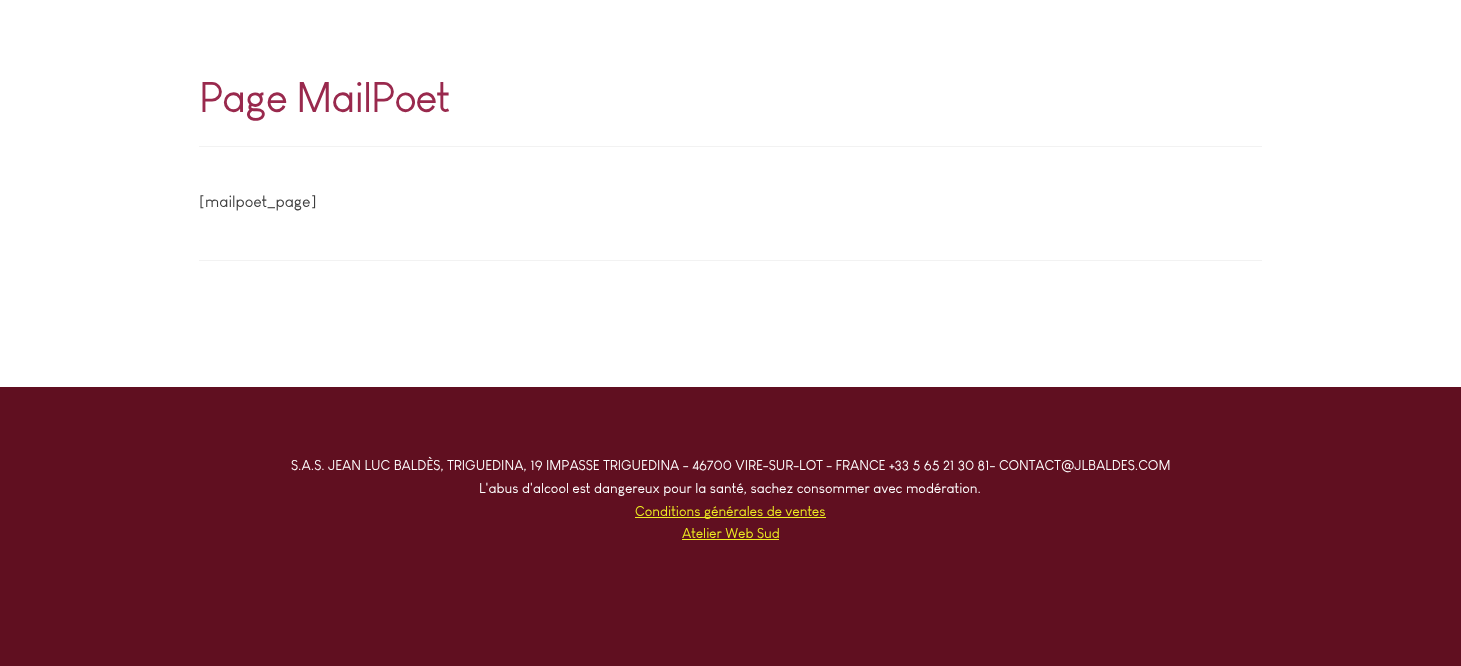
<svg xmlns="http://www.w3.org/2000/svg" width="1461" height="666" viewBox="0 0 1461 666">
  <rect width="100%" height="100%" fill="#ffffff"/>
  <rect x="199" y="146" width="1063" height="1" fill="#f2f2f2"/>
  <text x="199" y="112" font-family="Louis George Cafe" font-size="42" letter-spacing="-1" fill="#99294d">Page MailPoet</text>
  <text x="199" y="207" font-family="Louis George Cafe" font-size="16" fill="#3d3d3d">[mailpoet_page]</text>
  <rect x="199" y="260" width="1063" height="1" fill="#f2f2f2"/>
  <rect x="0" y="387" width="1461" height="279" fill="#600f20"/>
  <text x="291" y="470" font-family="Louis George Cafe" font-size="14" fill="#ffffff">S.A.S. JEAN LUC BALDÈS, TRIGUEDINA, 19 IMPASSE TRIGUEDINA - 46700 VIRE-SUR-LOT - FRANCE +33 5 65 21 30 81- CONTACT@JLBALDES.COM</text>
  <text x="479" y="493" font-family="Louis George Cafe" font-size="14" fill="#ffffff">L'abus d'alcool est dangereux pour la santé, sachez consommer avec modération.</text>
  <rect x="635" y="517" width="191" height="1" fill="#eeee22"/>
  <text x="635" y="516" font-family="Louis George Cafe" font-size="14" fill="#eeee22">Conditions générales de ventes</text>
  <text x="682" y="538" font-family="Louis George Cafe" font-size="14" fill="#eeee22">Atelier Web Sud</text>
  <rect x="682" y="539" width="97" height="1" fill="#eeee22"/>
</svg>
